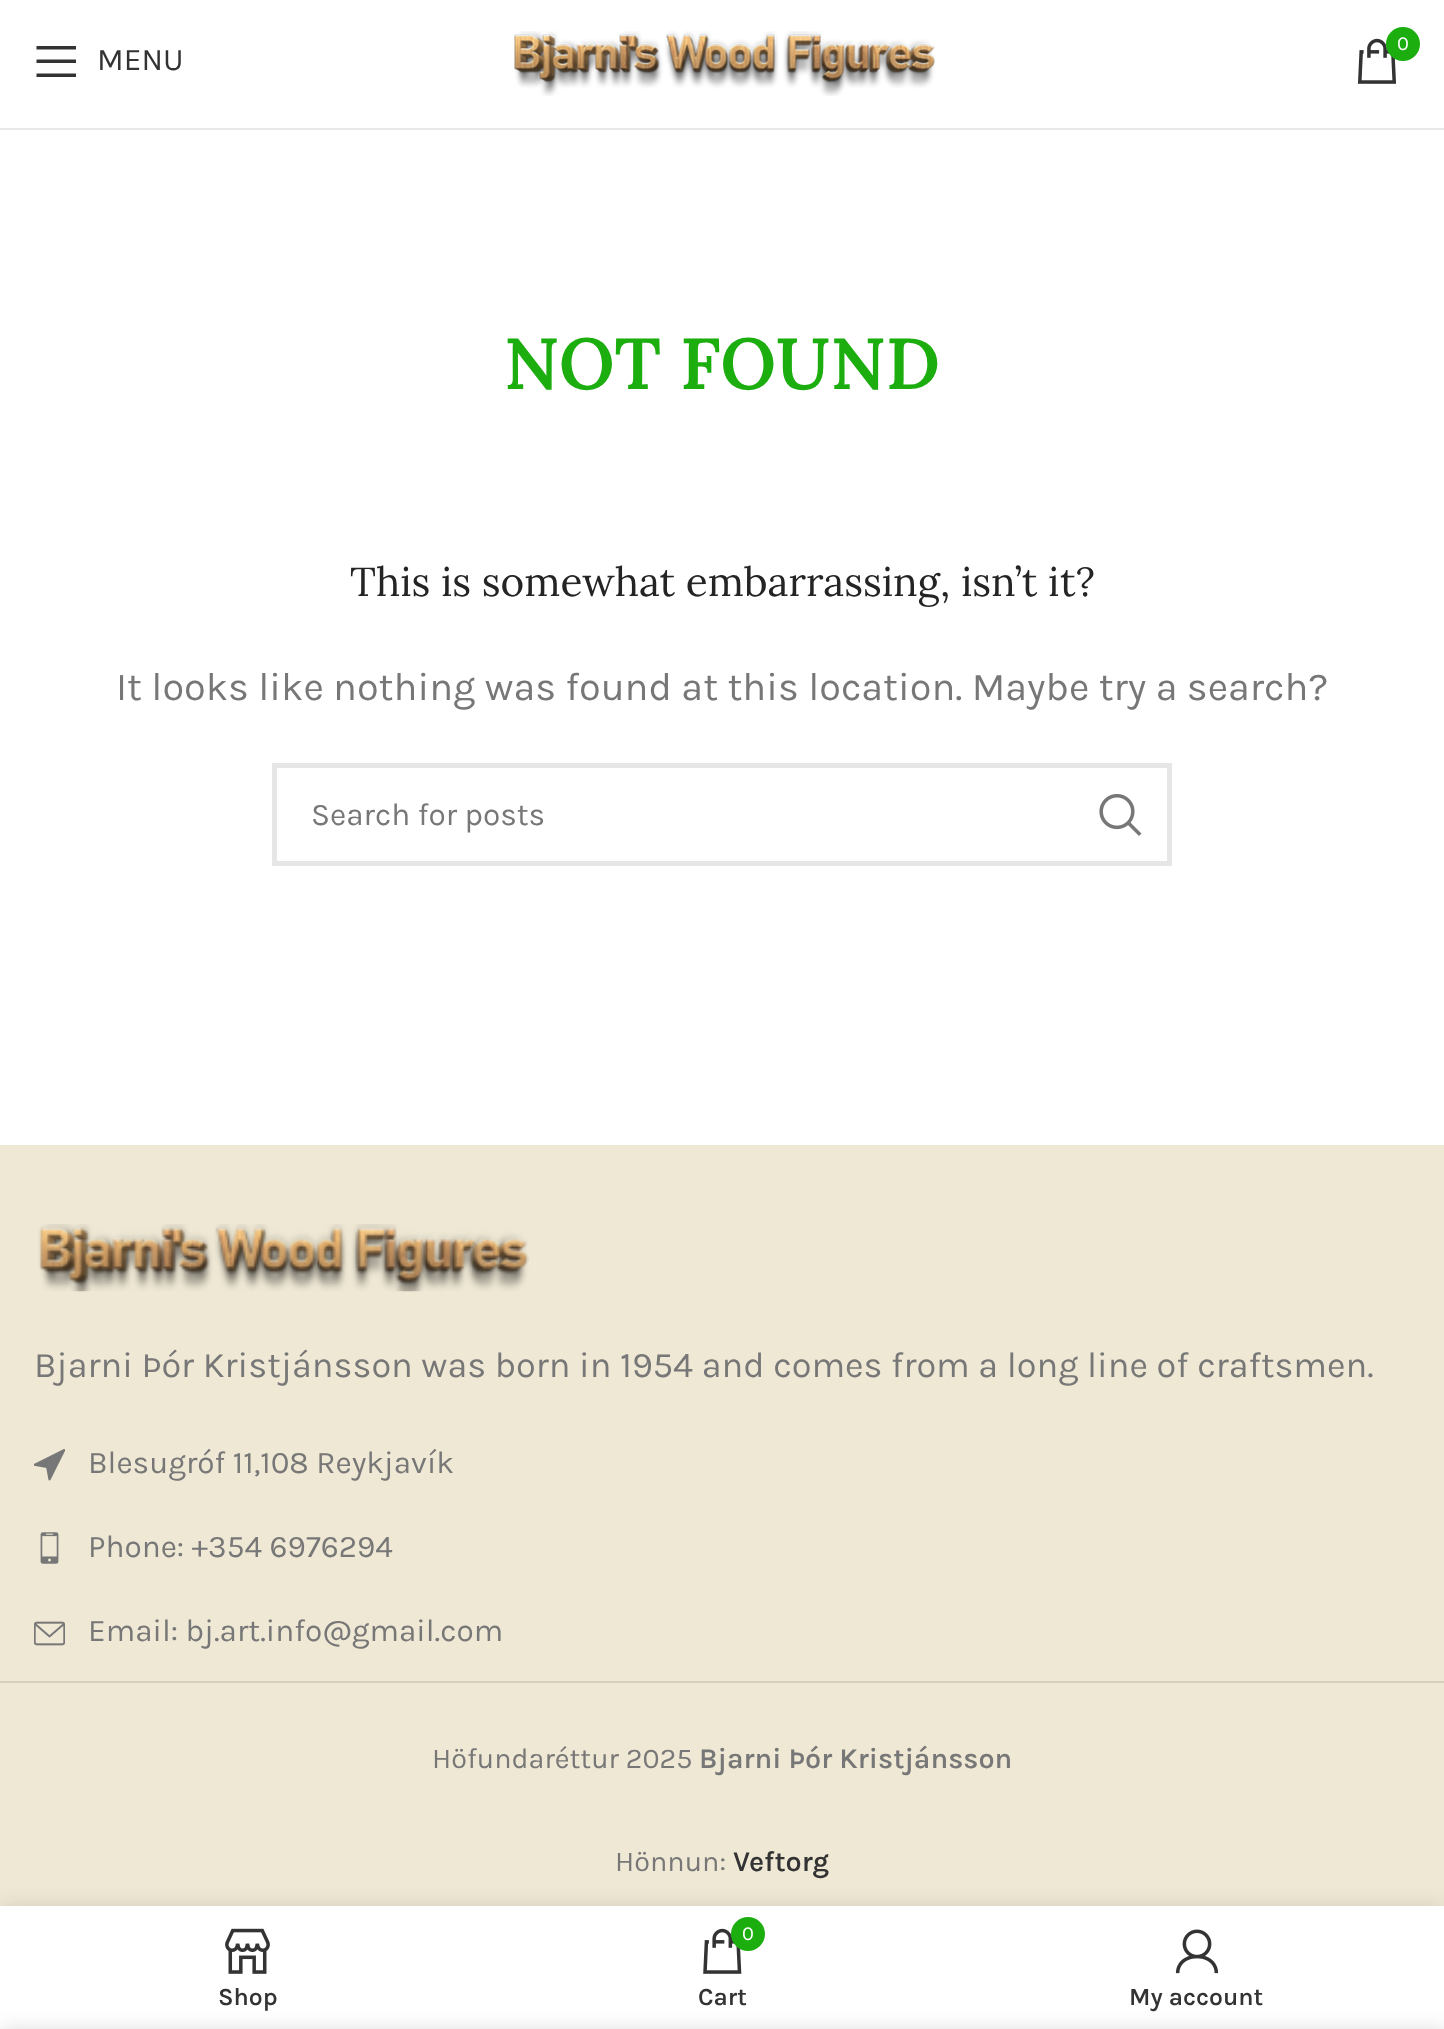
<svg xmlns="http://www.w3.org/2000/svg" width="1444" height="2029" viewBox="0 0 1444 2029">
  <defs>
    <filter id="blur1" x="-50%" y="-200%" width="200%" height="500%"><feGaussianBlur stdDeviation="10"/></filter>
  </defs>
  <rect width="100%" height="100%" fill="#ffffff"/>
  <rect x="0" y="128" width="1444" height="2" fill="#e8e8e8"/>
  <image x="514" y="31" width="421" height="65" href="img1.png"/>
  <image x="1357" y="38" width="40" height="46" href="img2.png"/>
  <circle cx="1403" cy="44" r="17" fill="#1cad0f"/>
  <text x="1397" y="50" font-family="Karla" font-size="20" fill="#ffffff">0</text>
  <path d="M36.5 49.5H76V46H36.5ZM36.5 63H76V59.5H36.5ZM36.5 77H76V73.5H36.5Z" fill="#333333"/>
  <text x="97" y="70" font-family="Karla" font-size="31.5" fill="#333333">MENU</text>
  <text x="504" y="389" font-family="Lora" font-size="72" font-weight="600" fill="#1cad0f">NOT FOUND</text>
  <text x="350" y="596" font-family="Lora" font-size="40.5" fill="#242424">This is somewhat embarrassing, isn’t it?</text>
  <text x="116" y="700" font-family="Karla" font-size="39.6" fill="#777777">It looks like nothing was found at this location. Maybe try a search?</text>
  <rect x="274.5" y="765.5" width="895" height="98" fill="none" stroke="#e6e6e6" stroke-width="5"/>
  <text x="311" y="825" font-family="Karla" font-size="31.5" fill="#777777">Search for posts</text>
  <image x="1099" y="794" width="43" height="42" href="img3.png"/>
  <rect x="0" y="1145" width="1444" height="761" fill="#efe8d5"/>
  <image x="38" y="1224" width="491" height="68" href="img4.png"/>
  <text x="34" y="1377" font-family="Karla" font-size="36" fill="#777777">Bjarni Þór Kristjánsson was born in 1954 and comes from a long line of craftsmen.</text>
  <image x="34" y="1449" width="31" height="32" href="img5.png"/>
  <text x="88" y="1473" font-family="Karla" font-size="31.5" fill="#777777">Blesugróf 11,108 Reykjavík</text>
  <image x="40" y="1532" width="19" height="32" href="img6.png"/>
  <text x="88" y="1557" font-family="Karla" font-size="31.5" fill="#777777">Phone: +354 6976294</text>
  <image x="34" y="1621" width="31" height="25" href="img7.png"/>
  <text x="88" y="1641" font-family="Karla" font-size="31.5" fill="#777777">Email: bj.art.info@gmail.com</text>
  <rect x="0" y="1681" width="1444" height="2" fill="#d6cfbe"/>
  <text x="432" y="1768" font-family="Karla" font-size="28.75" fill="#777777">Höfundaréttur 2025</text>
  <text x="699" y="1768" font-family="Karla" font-size="28.75" font-weight="600" fill="#777777">Bjarni Þór Kristjánsson</text>
  <text x="615" y="1871" font-family="Karla" font-size="28.75" fill="#777777">Hönnun:</text>
  <text x="733" y="1871" font-family="Karla" font-size="28.75" font-weight="600" fill="#333333">Veftorg</text>
  <rect x="0" y="1906" width="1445" height="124" fill="#000000" fill-opacity="0.12" filter="url(#blur1)"/>
  <rect x="0" y="1906" width="1444" height="123" fill="#ffffff"/>
  <image x="225" y="1928" width="45" height="46" href="img8.png"/>
  <text x="218" y="2005" font-family="Karla" font-size="24.75" font-weight="600" fill="#333333">Shop</text>
  <image x="703" y="1928" width="39" height="46" href="img9.png"/>
  <circle cx="748" cy="1934" r="17" fill="#1cad0f"/>
  <text x="742" y="1940" font-family="Karla" font-size="20" fill="#ffffff">0</text>
  <text x="698" y="2005" font-family="Karla" font-size="24.75" font-weight="600" fill="#333333">Cart</text>
  <image x="1175" y="1929" width="44" height="45" href="img10.png"/>
  <text x="1129" y="2005" font-family="Karla" font-size="24.75" font-weight="600" fill="#333333">My account</text>
  <rect x="0" y="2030" width="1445" height="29" fill="#000000" fill-opacity="0.14" filter="url(#blur1)"/>
</svg>
